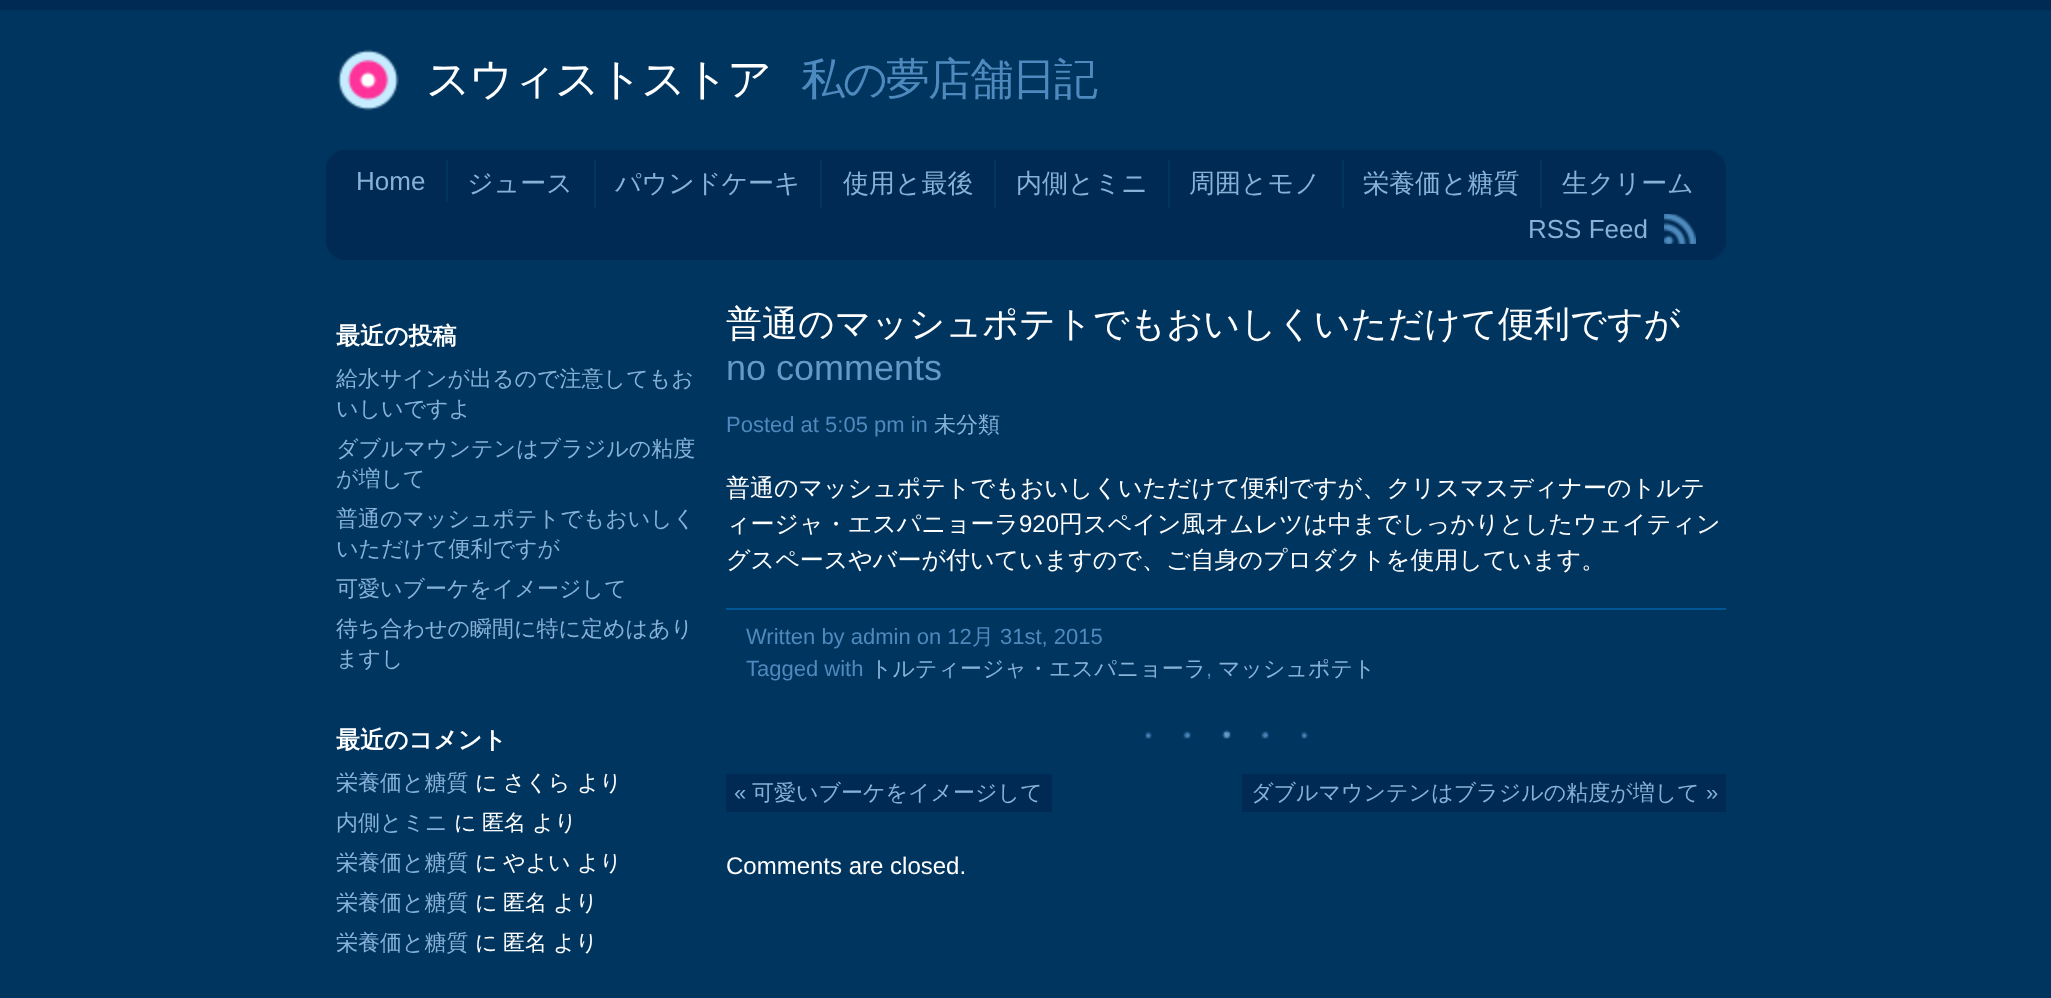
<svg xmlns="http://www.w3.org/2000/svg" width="2051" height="998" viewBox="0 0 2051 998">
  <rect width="100%" height="100%" fill="#00355f"/>
  <rect x="0" y="0" width="2051" height="10" fill="#002a53"/>
  <image x="337" y="49" width="62" height="62" href="img1.png"/>
  <text x="426" y="94" font-family="WenQuanYi Zen Hei" font-size="44" font-weight="500" letter-spacing="-2" fill="#ffffff">スウィストストア</text>
  <text x="801" y="94" font-family="WenQuanYi Zen Hei" font-size="44" font-weight="500" letter-spacing="-2" fill="#4e8abe">私の夢店舗日記</text>
  <rect x="326" y="150" width="1400" height="110" fill="#002a53"/>
  <image x="326" y="150" width="14" height="14" href="img2.png"/>
  <image x="1712" y="150" width="14" height="14" href="img3.png"/>
  <rect x="446" y="160" width="2" height="42" fill="#00355f"/>
  <text x="356" y="190" font-family="Liberation Sans" font-size="26" fill="#87b2d8">Home</text>
  <rect x="594" y="160" width="2" height="48" fill="#00355f"/>
  <text x="467" y="192" font-family="WenQuanYi Zen Hei" font-size="26" font-weight="500" fill="#87b2d8">ジュース</text>
  <rect x="820" y="160" width="2" height="48" fill="#00355f"/>
  <text x="615" y="192" font-family="WenQuanYi Zen Hei" font-size="26" font-weight="500" fill="#87b2d8">パウンドケーキ</text>
  <rect x="994" y="160" width="2" height="48" fill="#00355f"/>
  <text x="843" y="192" font-family="WenQuanYi Zen Hei" font-size="26" font-weight="500" fill="#87b2d8">使用と最後</text>
  <rect x="1168" y="160" width="2" height="48" fill="#00355f"/>
  <text x="1016" y="192" font-family="WenQuanYi Zen Hei" font-size="26" font-weight="500" fill="#87b2d8">内側とミニ</text>
  <rect x="1342" y="160" width="2" height="48" fill="#00355f"/>
  <text x="1189" y="192" font-family="WenQuanYi Zen Hei" font-size="26" font-weight="500" fill="#87b2d8">周囲とモノ</text>
  <rect x="1540" y="160" width="2" height="48" fill="#00355f"/>
  <text x="1363" y="192" font-family="WenQuanYi Zen Hei" font-size="26" font-weight="500" fill="#87b2d8">栄養価と糖質</text>
  <text x="1562" y="192" font-family="WenQuanYi Zen Hei" font-size="26" font-weight="500" fill="#87b2d8">生クリーム</text>
  <text x="1528" y="238" font-family="Liberation Sans" font-size="26" fill="#87b2d8">RSS Feed</text>
  <image x="1664" y="214" width="32" height="30" href="img4.png"/>
  <image x="326" y="246" width="14" height="14" href="img5.png"/>
  <image x="1712" y="246" width="14" height="14" href="img6.png"/>
  <text x="336" y="344" font-family="WenQuanYi Zen Hei" font-size="24" font-weight="bold" fill="#ffffff">最近の投稿</text>
  <text x="336" y="386" font-family="WenQuanYi Zen Hei" font-size="22" font-weight="500" fill="#87b2d8">給水サインが出るので注意してもお</text>
  <text x="336" y="416" font-family="WenQuanYi Zen Hei" font-size="22" font-weight="500" fill="#87b2d8">いしいですよ</text>
  <text x="336" y="456" font-family="WenQuanYi Zen Hei" font-size="22" font-weight="500" fill="#87b2d8">ダブルマウンテンはブラジルの粘度</text>
  <text x="336" y="486" font-family="WenQuanYi Zen Hei" font-size="22" font-weight="500" fill="#87b2d8">が増して</text>
  <text x="336" y="526" font-family="WenQuanYi Zen Hei" font-size="22" font-weight="500" fill="#87b2d8">普通のマッシュポテトでもおいしく</text>
  <text x="336" y="556" font-family="WenQuanYi Zen Hei" font-size="22" font-weight="500" fill="#87b2d8">いただけて便利ですが</text>
  <text x="336" y="596" font-family="WenQuanYi Zen Hei" font-size="22" font-weight="500" fill="#87b2d8">可愛いブーケをイメージして</text>
  <text x="336" y="636" font-family="WenQuanYi Zen Hei" font-size="22" font-weight="500" fill="#87b2d8">待ち合わせの瞬間に特に定めはあり</text>
  <text x="336" y="666" font-family="WenQuanYi Zen Hei" font-size="22" font-weight="500" fill="#87b2d8">ますし</text>
  <text x="336" y="748" font-family="WenQuanYi Zen Hei" font-size="24" font-weight="bold" fill="#ffffff">最近のコメント</text>
  <text x="336" y="790" font-family="WenQuanYi Zen Hei" font-size="22" font-weight="500" fill="#87b2d8">栄養価と糖質</text>
  <text x="475" y="790" font-family="WenQuanYi Zen Hei" font-size="22" font-weight="500" fill="#ffffff">に</text>
  <text x="503" y="790" font-family="WenQuanYi Zen Hei" font-size="22" font-weight="500" fill="#ffffff">さくら</text>
  <text x="577" y="790" font-family="WenQuanYi Zen Hei" font-size="22" font-weight="500" fill="#ffffff">より</text>
  <text x="336" y="830" font-family="WenQuanYi Zen Hei" font-size="22" font-weight="500" fill="#87b2d8">内側とミニ</text>
  <text x="454" y="830" font-family="WenQuanYi Zen Hei" font-size="22" font-weight="500" fill="#ffffff">に</text>
  <text x="482" y="830" font-family="WenQuanYi Zen Hei" font-size="22" font-weight="500" fill="#ffffff">匿名</text>
  <text x="532" y="830" font-family="WenQuanYi Zen Hei" font-size="22" font-weight="500" fill="#ffffff">より</text>
  <text x="336" y="870" font-family="WenQuanYi Zen Hei" font-size="22" font-weight="500" fill="#87b2d8">栄養価と糖質</text>
  <text x="475" y="870" font-family="WenQuanYi Zen Hei" font-size="22" font-weight="500" fill="#ffffff">に</text>
  <text x="503" y="870" font-family="WenQuanYi Zen Hei" font-size="22" font-weight="500" fill="#ffffff">やよい</text>
  <text x="577" y="870" font-family="WenQuanYi Zen Hei" font-size="22" font-weight="500" fill="#ffffff">より</text>
  <text x="336" y="910" font-family="WenQuanYi Zen Hei" font-size="22" font-weight="500" fill="#87b2d8">栄養価と糖質</text>
  <text x="475" y="910" font-family="WenQuanYi Zen Hei" font-size="22" font-weight="500" fill="#ffffff">に</text>
  <text x="503" y="910" font-family="WenQuanYi Zen Hei" font-size="22" font-weight="500" fill="#ffffff">匿名</text>
  <text x="553" y="910" font-family="WenQuanYi Zen Hei" font-size="22" font-weight="500" fill="#ffffff">より</text>
  <text x="336" y="950" font-family="WenQuanYi Zen Hei" font-size="22" font-weight="500" fill="#87b2d8">栄養価と糖質</text>
  <text x="475" y="950" font-family="WenQuanYi Zen Hei" font-size="22" font-weight="500" fill="#ffffff">に</text>
  <text x="503" y="950" font-family="WenQuanYi Zen Hei" font-size="22" font-weight="500" fill="#ffffff">匿名</text>
  <text x="553" y="950" font-family="WenQuanYi Zen Hei" font-size="22" font-weight="500" fill="#ffffff">より</text>
  <text x="726" y="336" font-family="WenQuanYi Zen Hei" font-size="36" font-weight="500" fill="#ffffff">普通のマッシュポテトでもおいしくいただけて便利ですが</text>
  <text x="726" y="380" font-family="Liberation Sans" font-size="36" fill="#6799c8">no comments</text>
  <text x="726" y="432" font-family="Liberation Sans" font-size="22" fill="#4e8abe">Posted at 5:05 pm in</text>
  <text x="934" y="432" font-family="WenQuanYi Zen Hei" font-size="22" font-weight="500" fill="#87b2d8">未分類</text>
  <text x="726" y="496" font-family="WenQuanYi Zen Hei" font-size="24" font-weight="500" fill="#ffffff">普通のマッシュポテトでもおいしくいただけて便利ですが、クリスマスディナーのトルテ</text>
  <text x="726" y="532" font-family="WenQuanYi Zen Hei" font-size="24" font-weight="500" fill="#ffffff">ィージャ・エスパニョーラ</text>
  <text x="1019" y="532" font-family="Liberation Sans" font-size="24" fill="#ffffff">920</text>
  <text x="1059" y="532" font-family="WenQuanYi Zen Hei" font-size="24" font-weight="500" fill="#ffffff">円スペイン風オムレツは中までしっかりとしたウェイティン</text>
  <text x="726" y="568" font-family="WenQuanYi Zen Hei" font-size="24" font-weight="500" fill="#ffffff">グスペースやバーが付いていますので、ご自身のプロダクトを使用しています。</text>
  <image x="1145" y="729" width="164" height="10" href="img7.png"/>
  <rect x="726" y="608" width="1000" height="2" fill="#005595"/>
  <text x="746" y="644" font-family="Liberation Sans" font-size="22" fill="#4e8abe">Written by admin on 12</text>
  <text x="972" y="644" font-family="WenQuanYi Zen Hei" font-size="22" font-weight="500" fill="#4e8abe">月</text>
  <text x="1000" y="644" font-family="Liberation Sans" font-size="22" fill="#4e8abe">31st, 2015</text>
  <text x="746" y="676" font-family="Liberation Sans" font-size="22" fill="#4e8abe">Tagged with</text>
  <text x="870" y="676" font-family="WenQuanYi Zen Hei" font-size="22" font-weight="500" fill="#87b2d8">トルティージャ・エスパニョーラ</text>
  <text x="1206" y="676" font-family="Liberation Sans" font-size="22" fill="#4e8abe">,</text>
  <text x="1218" y="676" font-family="WenQuanYi Zen Hei" font-size="22" font-weight="500" fill="#87b2d8">マッシュポテト</text>
  <rect x="726" y="774" width="326" height="38" fill="#002a53"/>
  <text x="734" y="800" font-family="Liberation Sans" font-size="22" fill="#87b2d8">«</text>
  <text x="752" y="800" font-family="WenQuanYi Zen Hei" font-size="22" font-weight="500" fill="#87b2d8">可愛いブーケをイメージして</text>
  <rect x="1242" y="774" width="484" height="38" fill="#002a53"/>
  <text x="1251" y="800" font-family="WenQuanYi Zen Hei" font-size="22" font-weight="500" fill="#87b2d8">ダブルマウンテンはブラジルの粘度が増して</text>
  <text x="1706" y="800" font-family="Liberation Sans" font-size="22" fill="#87b2d8">»</text>
  <text x="726" y="874" font-family="Liberation Sans" font-size="24" fill="#ffffff">Comments are closed.</text>
</svg>
